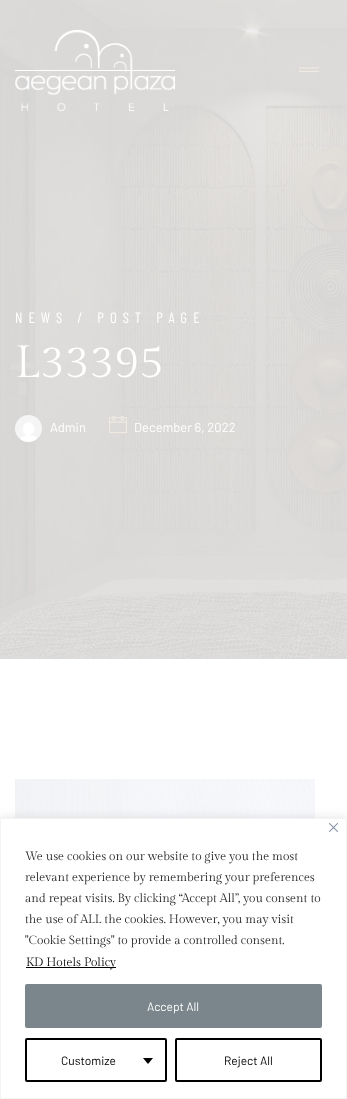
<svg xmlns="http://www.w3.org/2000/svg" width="347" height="1099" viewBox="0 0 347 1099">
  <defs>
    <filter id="blur1" x="-50%" y="-200%" width="200%" height="500%"><feGaussianBlur stdDeviation="5"/></filter>
  </defs>
  <rect width="100%" height="100%" fill="#ffffff"/>
  <image x="0" y="0" width="347" height="659" href="img3.png"/>
  <image x="15" y="30" width="160" height="81" href="img1.png"/>
  <image x="299" y="67" width="20" height="5" href="img2.png"/>
  <text x="15" y="323" font-family="Barlow Condensed" font-size="15" letter-spacing="6" fill="#ffffff">NEWS / POST PAGE</text>
  <text x="15" y="377" font-family="Gilda Display" font-size="45" fill="#ffffff">L33395</text>
  <image x="15" y="415" width="27" height="27" href="img4.png"/>
  <text x="50" y="432" font-family="Barlow" font-size="13" fill="#ffffff">Admin</text>
  <image x="109" y="416" width="18" height="18" href="img5.png"/>
  <text x="134" y="432" font-family="Barlow" font-size="13" fill="#ffffff">December 6, 2022</text>
  <image x="15" y="779" width="300" height="39" href="img6.png"/>
  <rect x="0" y="817" width="347" height="281" fill="#acabab" fill-opacity="0.3" filter="url(#blur1)"/>
  <rect x="0.5" y="818.5" width="346" height="280" fill="#ffffff" stroke="#f4f4f4"/>
  <image x="329" y="823" width="9" height="9" href="img7.png"/>
  <text x="25" y="860" font-family="Gilda Display" font-size="12" fill="#212121">We use cookies on our website to give you the most</text>
  <text x="25" y="881" font-family="Gilda Display" font-size="12" fill="#212121">relevant experience by remembering your preferences</text>
  <text x="25" y="902" font-family="Gilda Display" font-size="12" fill="#212121">and repeat visits. By clicking “Accept All”, you consent to</text>
  <text x="25" y="923" font-family="Gilda Display" font-size="12" fill="#212121">the use of ALL the cookies. However, you may visit</text>
  <text x="25" y="944" font-family="Gilda Display" font-size="12" fill="#212121">"Cookie Settings" to provide a controlled consent.</text>
  <rect x="26" y="967" width="90" height="1" fill="#000000"/>
  <text x="26" y="966" font-family="Gilda Display" font-size="12" fill="#000000">KD Hotels Policy</text>
  <rect x="26" y="985" width="295" height="42" rx="1" fill="#7a868c" stroke="#7a868c" stroke-width="2"/>
  <text x="147" y="1011" font-family="Barlow" font-size="12" fill="#ffffff">Accept All</text>
  <rect x="26" y="1039" width="140" height="42" rx="1" fill="none" stroke="#000000" stroke-width="2"/>
  <text x="61" y="1065" font-family="Barlow" font-size="12" fill="#000000">Customize</text>
  <path d="M143 1058H153L148 1064Z" fill="#000000"/>
  <rect x="176" y="1039" width="145" height="42" rx="1" fill="none" stroke="#000000" stroke-width="2"/>
  <text x="224" y="1065" font-family="Barlow" font-size="12" fill="#000000">Reject All</text>
</svg>
